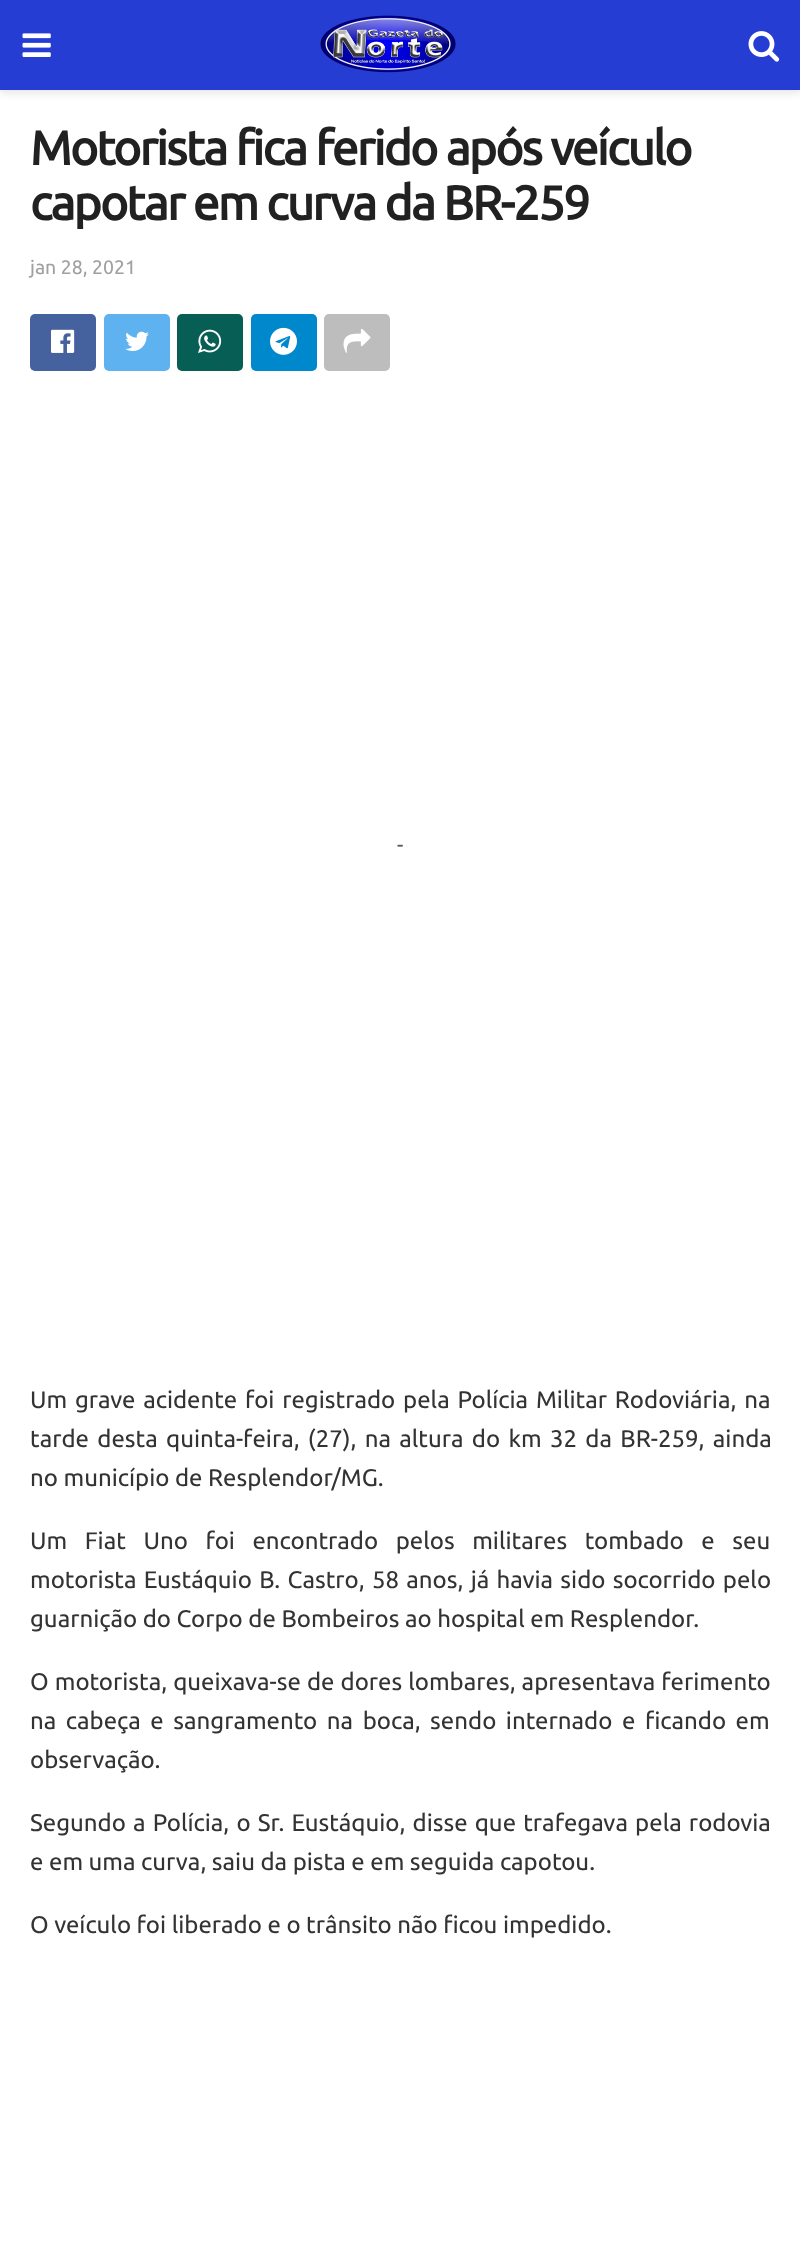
<svg xmlns="http://www.w3.org/2000/svg" width="800" height="2249" viewBox="0 0 800 2249">
  <defs>
    <filter id="blur1" x="-50%" y="-200%" width="200%" height="500%"><feGaussianBlur stdDeviation="4.5"/></filter>
  </defs>
  <rect width="100%" height="100%" fill="#ffffff"/>
  <rect x="0" y="3" width="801" height="90" fill="#000000" fill-opacity="0.1" filter="url(#blur1)"/>
  <rect x="0" y="0" width="800" height="90" fill="#263dd3"/>
  <image x="22" y="33" width="29" height="24" href="img1.png"/>
  <image x="320" y="15" width="136" height="58" href="img2.png"/>
  <image x="748" y="31" width="32" height="31" href="img3.png"/>
  <text x="30" y="165" font-family="Ubuntu" font-size="48" font-weight="bold" letter-spacing="-1.9" fill="#212121">Motorista fica ferido após veículo</text>
  <text x="30" y="220" font-family="Ubuntu" font-size="48" font-weight="bold" letter-spacing="-1.9" fill="#212121">capotar em curva da BR-259</text>
  <text x="30" y="274" font-family="Ubuntu" font-size="19.5" fill="#a0a0a0">jan 28, 2021</text>
  <rect x="30" y="314" width="66" height="57" rx="5" fill="#45629f"/>
  <image x="51" y="329" width="24" height="24" href="img4.png"/>
  <rect x="104" y="314" width="66" height="57" rx="5" fill="#5eb2ef"/>
  <image x="125" y="331" width="24" height="20" href="img5.png"/>
  <rect x="177" y="314" width="66" height="57" rx="5" fill="#075e54"/>
  <image x="198" y="329" width="24" height="24" href="img6.png"/>
  <rect x="251" y="314" width="66" height="57" rx="5" fill="#0088cc"/>
  <image x="270" y="327" width="27" height="28" href="img7.png"/>
  <rect x="324" y="314" width="66" height="57" rx="5" fill="#bdbdbd"/>
  <image x="343" y="328" width="28" height="25" href="img8.png"/>
  <text x="397" y="852" font-family="Ubuntu" font-size="21" fill="#53585c">-</text>
  <text x="30" y="1408" word-spacing="2.25" font-family="Ubuntu" font-size="24" fill="#333333">Um grave acidente foi registrado pela Polícia Militar Rodoviária, na</text>
  <text x="30" y="1447" word-spacing="2.75" font-family="Ubuntu" font-size="24" fill="#333333">tarde desta quinta-feira, (27), na altura do km 32 da BR-259, ainda</text>
  <text x="30" y="1486" font-family="Ubuntu" font-size="24" fill="#333333">no município de Resplendor/MG.</text>
  <text x="30" y="1549" word-spacing="12" font-family="Ubuntu" font-size="24" fill="#333333">Um Fiat Uno foi encontrado pelos militares tombado e seu</text>
  <text x="30" y="1588" word-spacing="1.75" font-family="Ubuntu" font-size="24" fill="#333333">motorista Eustáquio B. Castro, 58 anos, já havia sido socorrido pelo</text>
  <text x="30" y="1627" font-family="Ubuntu" font-size="24" fill="#333333">guarnição do Corpo de Bombeiros ao hospital em Resplendor.</text>
  <text x="30" y="1690" word-spacing="0.5" font-family="Ubuntu" font-size="24" fill="#333333">O motorista, queixava-se de dores lombares, apresentava ferimento</text>
  <text x="30" y="1729" word-spacing="4" font-family="Ubuntu" font-size="24" fill="#333333">na cabeça e sangramento na boca, sendo internado e ficando em</text>
  <text x="30" y="1768" font-family="Ubuntu" font-size="24" fill="#333333">observação.</text>
  <text x="30" y="1831" word-spacing="1.6" font-family="Ubuntu" font-size="24" fill="#333333">Segundo a Polícia, o Sr. Eustáquio, disse que trafegava pela rodovia</text>
  <text x="30" y="1870" font-family="Ubuntu" font-size="24" fill="#333333">e em uma curva, saiu da pista e em seguida capotou.</text>
  <text x="30" y="1933" font-family="Ubuntu" font-size="24" fill="#333333">O veículo foi liberado e o trânsito não ficou impedido.</text>
</svg>
